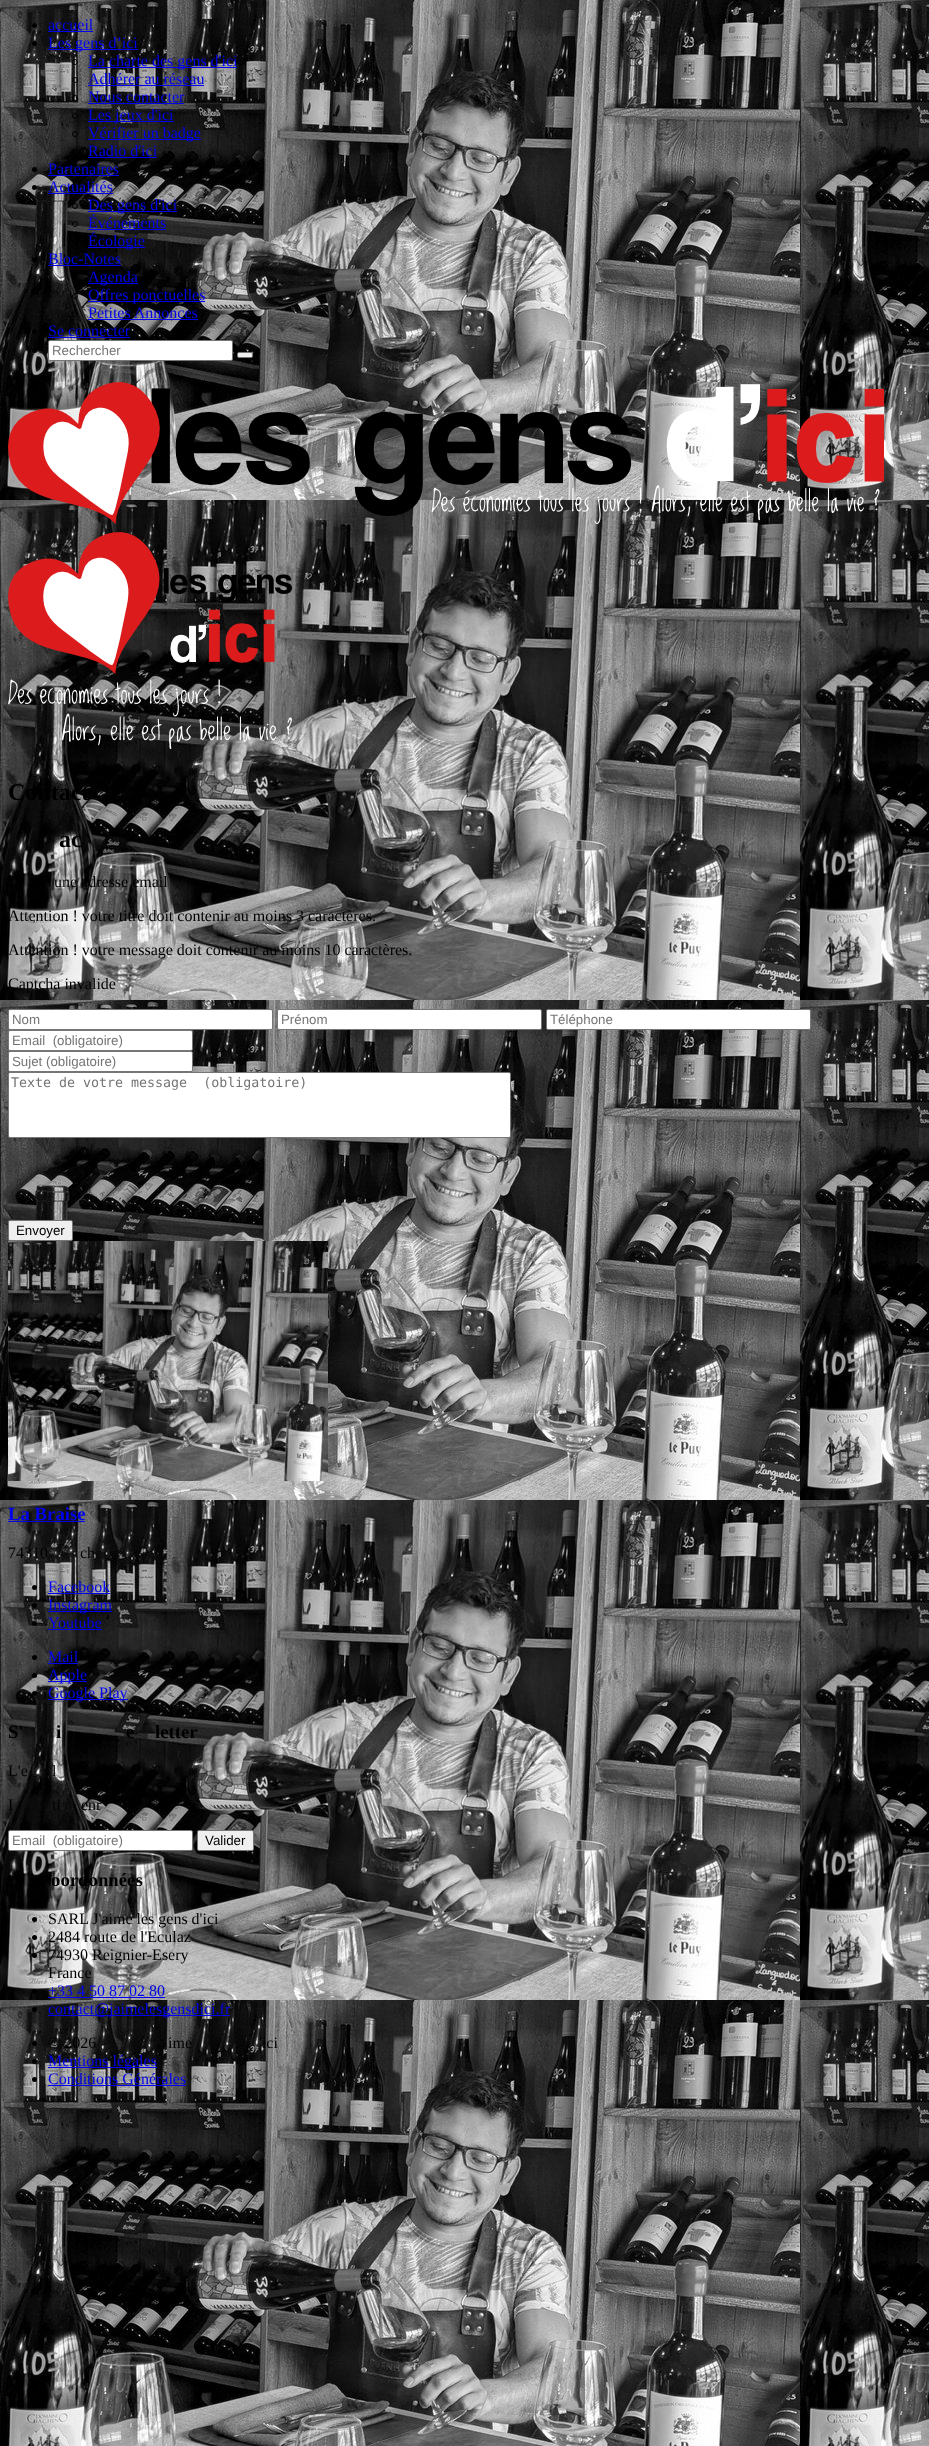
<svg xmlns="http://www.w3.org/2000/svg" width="929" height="2446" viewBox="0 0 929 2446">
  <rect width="100%" height="100%" fill="#ffffff"/>
  <image x="0" y="0" width="929" height="2446" href="img1.png"/>
  <circle cx="34.5" cy="25.5" r="2.5" fill="#000000"/>
  <text x="48" y="30" font-family="Liberation Serif" font-size="16" fill="#0000ee">accueil</text>
  <rect x="48" y="31" width="45" height="1" fill="#0000ee"/>
  <circle cx="34.5" cy="43.5" r="2.5" fill="#000000"/>
  <rect x="48" y="49" width="90" height="1" fill="#0000ee"/>
  <text x="48" y="48" font-family="Liberation Serif" font-size="16" fill="#0000ee">Les gens d’ici</text>
  <circle cx="75" cy="62" r="2.5" fill="none" stroke="#000000"/>
  <rect x="88" y="67" width="149" height="1" fill="#0000ee"/>
  <text x="88" y="66" font-family="Liberation Serif" font-size="16" fill="#0000ee">La charte des gens d'ici</text>
  <circle cx="75" cy="80" r="2.5" fill="none" stroke="#000000"/>
  <text x="88" y="84" font-family="Liberation Serif" font-size="16" fill="#0000ee">Adhérer au réseau</text>
  <rect x="88" y="85" width="116" height="1" fill="#0000ee"/>
  <circle cx="75" cy="98" r="2.5" fill="none" stroke="#000000"/>
  <text x="88" y="102" font-family="Liberation Serif" font-size="16" fill="#0000ee">Nous contacter</text>
  <rect x="88" y="103" width="96" height="1" fill="#0000ee"/>
  <circle cx="75" cy="116" r="2.5" fill="none" stroke="#000000"/>
  <rect x="88" y="121" width="86" height="1" fill="#0000ee"/>
  <text x="88" y="120" font-family="Liberation Serif" font-size="16" fill="#0000ee">Les jeux d'ici</text>
  <circle cx="75" cy="134" r="2.5" fill="none" stroke="#000000"/>
  <rect x="88" y="139" width="113" height="1" fill="#0000ee"/>
  <text x="88" y="138" font-family="Liberation Serif" font-size="16" fill="#0000ee">Vérifier un badge</text>
  <circle cx="75" cy="152" r="2.5" fill="none" stroke="#000000"/>
  <text x="88" y="156" font-family="Liberation Serif" font-size="16" fill="#0000ee">Radio d'ici</text>
  <rect x="88" y="157" width="69" height="1" fill="#0000ee"/>
  <circle cx="34.5" cy="169.5" r="2.5" fill="#000000"/>
  <text x="48" y="174" font-family="Liberation Serif" font-size="16" fill="#0000ee">Partenaires</text>
  <rect x="48" y="175" width="71" height="1" fill="#0000ee"/>
  <circle cx="34.5" cy="187.5" r="2.5" fill="#000000"/>
  <text x="48" y="192" font-family="Liberation Serif" font-size="16" fill="#0000ee">Actualités</text>
  <rect x="48" y="193" width="65" height="1" fill="#0000ee"/>
  <circle cx="75" cy="206" r="2.5" fill="none" stroke="#000000"/>
  <rect x="88" y="211" width="89" height="1" fill="#0000ee"/>
  <text x="88" y="210" font-family="Liberation Serif" font-size="16" fill="#0000ee">Des gens d'ici</text>
  <circle cx="75" cy="224" r="2.5" fill="none" stroke="#000000"/>
  <text x="88" y="228" font-family="Liberation Serif" font-size="16" fill="#0000ee">Événements</text>
  <rect x="88" y="229" width="78" height="1" fill="#0000ee"/>
  <circle cx="75" cy="242" r="2.5" fill="none" stroke="#000000"/>
  <rect x="88" y="247" width="57" height="1" fill="#0000ee"/>
  <text x="88" y="246" font-family="Liberation Serif" font-size="16" fill="#0000ee">Écologie</text>
  <circle cx="34.5" cy="259.5" r="2.5" fill="#000000"/>
  <text x="48" y="264" font-family="Liberation Serif" font-size="16" fill="#0000ee">Bloc-Notes</text>
  <rect x="48" y="265" width="73" height="1" fill="#0000ee"/>
  <circle cx="75" cy="278" r="2.5" fill="none" stroke="#000000"/>
  <rect x="88" y="283" width="50" height="1" fill="#0000ee"/>
  <text x="88" y="282" font-family="Liberation Serif" font-size="16" fill="#0000ee">Agenda</text>
  <circle cx="75" cy="296" r="2.5" fill="none" stroke="#000000"/>
  <rect x="88" y="301" width="117" height="1" fill="#0000ee"/>
  <text x="88" y="300" font-family="Liberation Serif" font-size="16" fill="#0000ee">Offres ponctuelles</text>
  <circle cx="75" cy="314" r="2.5" fill="none" stroke="#000000"/>
  <text x="88" y="318" font-family="Liberation Serif" font-size="16" fill="#0000ee">Petites Annonces</text>
  <rect x="88" y="319" width="110" height="1" fill="#0000ee"/>
  <circle cx="34.5" cy="331.5" r="2.5" fill="#000000"/>
  <text x="48" y="336" font-family="Liberation Serif" font-size="16" fill="#0000ee">Se connecter</text>
  <rect x="48" y="337" width="82" height="1" fill="#0000ee"/>
  <circle cx="34.5" cy="350.5" r="2.5" fill="#000000"/>
  <rect x="48.5" y="340.5" width="184" height="20" rx="1.5" fill="#ffffff" stroke="#767676"/>
  <text x="52" y="355" font-family="Liberation Sans" font-size="13.3" fill="#757575">Rechercher</text>
  <rect x="237.5" y="352.5" width="15" height="5" rx="1.5" fill="#efefef" stroke="#767676"/>
  <image x="8" y="382" width="876" height="142" href="img2.png"/>
  <image x="8" y="532" width="284" height="217" href="img3.png"/>
  <text x="8" y="800" font-family="Liberation Serif" font-size="24" font-weight="bold" fill="#000000">Contact</text>
  <text x="59" y="847" font-family="Liberation Serif" font-size="24" font-weight="bold" fill="#000000">ac</text>
  <text x="54" y="887" font-family="Liberation Serif" font-size="16" fill="#000000">une adresse email</text>
  <text x="8" y="921" font-family="Liberation Serif" font-size="16" fill="#000000">Attention ! votre titre doit contenir au moins 3 caractères.</text>
  <text x="8" y="955" font-family="Liberation Serif" font-size="16" fill="#000000">Attention ! votre message doit contenir au moins 10 caractères.</text>
  <text x="8" y="989" font-family="Liberation Serif" font-size="16" fill="#000000">Captcha invalide</text>
  <rect x="8.5" y="1009.5" width="264" height="20" rx="1.5" fill="#ffffff" stroke="#767676"/>
  <text x="12" y="1024" font-family="Liberation Sans" font-size="13.3" fill="#757575">Nom</text>
  <rect x="277.5" y="1009.5" width="264" height="20" rx="1.5" fill="#ffffff" stroke="#767676"/>
  <text x="281" y="1024" font-family="Liberation Sans" font-size="13.3" fill="#757575">Prénom</text>
  <rect x="546.5" y="1009.5" width="264" height="20" rx="1.5" fill="#ffffff" stroke="#767676"/>
  <text x="550" y="1024" font-family="Liberation Sans" font-size="13.3" fill="#757575">Téléphone</text>
  <rect x="8.5" y="1030.5" width="184" height="20" rx="1.5" fill="#ffffff" stroke="#767676"/>
  <text x="12" y="1045" font-family="Liberation Sans" font-size="13.3" fill="#757575" xml:space="preserve">Email  (obligatoire)</text>
  <rect x="8.5" y="1051.5" width="184" height="20" rx="1.5" fill="#ffffff" stroke="#767676"/>
  <text x="12" y="1066" font-family="Liberation Sans" font-size="13.3" fill="#757575">Sujet (obligatoire)</text>
  <rect x="8.5" y="1072.5" width="502" height="65" rx="1.5" fill="#ffffff" stroke="#767676"/>
  <text x="11" y="1087" font-family="DejaVu Sans Mono" font-size="13.3" fill="#757575" xml:space="preserve">Texte de votre message  (obligatoire)</text>
  <rect x="8.5" y="1220.5" width="64" height="20" rx="1.5" fill="#efefef" stroke="#767676"/>
  <text x="16" y="1235" font-family="Liberation Sans" font-size="13.3" fill="#000000">Envoyer</text>
  <image x="8" y="1241" width="320" height="240" href="img4.png"/>
  <text x="8" y="1520" font-family="Liberation Serif" font-size="18.75" font-weight="bold" fill="#0000ee">La Braise</text>
  <rect x="8" y="1521" width="77" height="1" fill="#0000ee"/>
  <text x="8" y="1558" font-family="Liberation Serif" font-size="16" fill="#000000">74310</text>
  <text x="80" y="1558" font-family="Liberation Serif" font-size="16" fill="#000000">ch</text>
  <circle cx="34.5" cy="1587.5" r="2.5" fill="#000000"/>
  <text x="48" y="1592" font-family="Liberation Serif" font-size="16" fill="#0000ee">Facebook</text>
  <rect x="48" y="1593" width="62" height="1" fill="#0000ee"/>
  <circle cx="34.5" cy="1605.5" r="2.5" fill="#000000"/>
  <rect x="48" y="1611" width="64" height="1" fill="#0000ee"/>
  <text x="48" y="1610" font-family="Liberation Serif" font-size="16" fill="#0000ee">Instagram</text>
  <circle cx="34.5" cy="1623.5" r="2.5" fill="#000000"/>
  <text x="48" y="1628" font-family="Liberation Serif" font-size="16" fill="#0000ee">Youtube</text>
  <rect x="48" y="1629" width="54" height="1" fill="#0000ee"/>
  <circle cx="34.5" cy="1657.5" r="2.5" fill="#000000"/>
  <text x="48" y="1662" font-family="Liberation Serif" font-size="16" fill="#0000ee">Mail</text>
  <rect x="48" y="1663" width="30" height="1" fill="#0000ee"/>
  <circle cx="34.5" cy="1675.5" r="2.5" fill="#000000"/>
  <rect x="48" y="1681" width="39" height="1" fill="#0000ee"/>
  <text x="48" y="1680" font-family="Liberation Serif" font-size="16" fill="#0000ee">Apple</text>
  <circle cx="34.5" cy="1693.5" r="2.5" fill="#000000"/>
  <rect x="48" y="1699" width="80" height="1" fill="#0000ee"/>
  <text x="48" y="1698" font-family="Liberation Serif" font-size="16" fill="#0000ee">Google Play</text>
  <text x="8" y="1738" font-family="Liberation Serif" font-size="18.75" font-weight="bold" fill="#000000">S'</text>
  <text x="56" y="1738" font-family="Liberation Serif" font-size="18.75" font-weight="bold" fill="#000000">i</text>
  <text x="126" y="1738" font-family="Liberation Serif" font-size="18.75" font-weight="bold" fill="#000000">e</text>
  <text x="155" y="1738" font-family="Liberation Serif" font-size="18.75" font-weight="bold" fill="#000000">letter</text>
  <text x="8" y="1776" font-family="Liberation Serif" font-size="16" fill="#000000">L'e</text>
  <text x="52" y="1776" font-family="Liberation Serif" font-size="16" fill="#000000">l</text>
  <text x="8" y="1810" font-family="Liberation Serif" font-size="16" fill="#000000">I</text>
  <text x="52" y="1810" font-family="Liberation Serif" font-size="16" fill="#000000">ti</text>
  <text x="81" y="1810" font-family="Liberation Serif" font-size="16" fill="#000000">enr</text>
  <rect x="8.5" y="1830.5" width="184" height="20" rx="1.5" fill="#ffffff" stroke="#767676"/>
  <text x="12" y="1845" font-family="Liberation Sans" font-size="13.3" fill="#757575" xml:space="preserve">Email  (obligatoire)</text>
  <rect x="197.5" y="1830.5" width="56" height="20" rx="1.5" fill="#efefef" stroke="#767676"/>
  <text x="205" y="1845" font-family="Liberation Sans" font-size="13.3" fill="#000000">Valider</text>
  <text x="51" y="1886" font-family="Liberation Serif" font-size="18.75" font-weight="bold" fill="#000000">oordonnées</text>
  <circle cx="34.5" cy="1919.5" r="2.5" fill="#000000"/>
  <text x="48" y="1924" font-family="Liberation Serif" font-size="16" fill="#000000">SARL J'aime les gens d'ici</text>
  <circle cx="34.5" cy="1937.5" r="2.5" fill="#000000"/>
  <text x="48" y="1942" font-family="Liberation Serif" font-size="16" fill="#000000">2484 route de l'Eculaz</text>
  <circle cx="34.5" cy="1955.5" r="2.5" fill="#000000"/>
  <text x="48" y="1960" font-family="Liberation Serif" font-size="16" fill="#000000">74930 Reignier-Esery</text>
  <text x="48" y="1978" font-family="Liberation Serif" font-size="16" fill="#000000">France</text>
  <circle cx="34.5" cy="1991.5" r="2.5" fill="#000000"/>
  <text x="48" y="1996" font-family="Liberation Serif" font-size="16" fill="#0000ee">+33 4 50 87 02 80</text>
  <rect x="48" y="1997" width="117" height="1" fill="#0000ee"/>
  <circle cx="34.5" cy="2009.5" r="2.5" fill="#000000"/>
  <rect x="48" y="2015" width="182" height="1" fill="#0000ee"/>
  <text x="48" y="2014" font-family="Liberation Serif" font-size="16" fill="#0000ee">contact@jaimelesgensdici.fr</text>
  <circle cx="34.5" cy="2043.5" r="2.5" fill="#000000"/>
  <text x="48" y="2048" font-family="Liberation Serif" font-size="16" fill="#000000">© 2026 -</text>
  <text x="168" y="2048" font-family="Liberation Serif" font-size="16" fill="#000000">ime</text>
  <text x="259" y="2048" font-family="Liberation Serif" font-size="16" fill="#000000">'ici</text>
  <circle cx="34.5" cy="2061.5" r="2.5" fill="#000000"/>
  <rect x="48" y="2067" width="109" height="1" fill="#0000ee"/>
  <text x="48" y="2066" font-family="Liberation Serif" font-size="16" fill="#0000ee">Mentions légales</text>
  <circle cx="34.5" cy="2079.5" r="2.5" fill="#000000"/>
  <text x="48" y="2084" font-family="Liberation Serif" font-size="16" fill="#0000ee">Conditions Générales</text>
  <rect x="48" y="2085" width="138" height="1" fill="#0000ee"/>
</svg>
